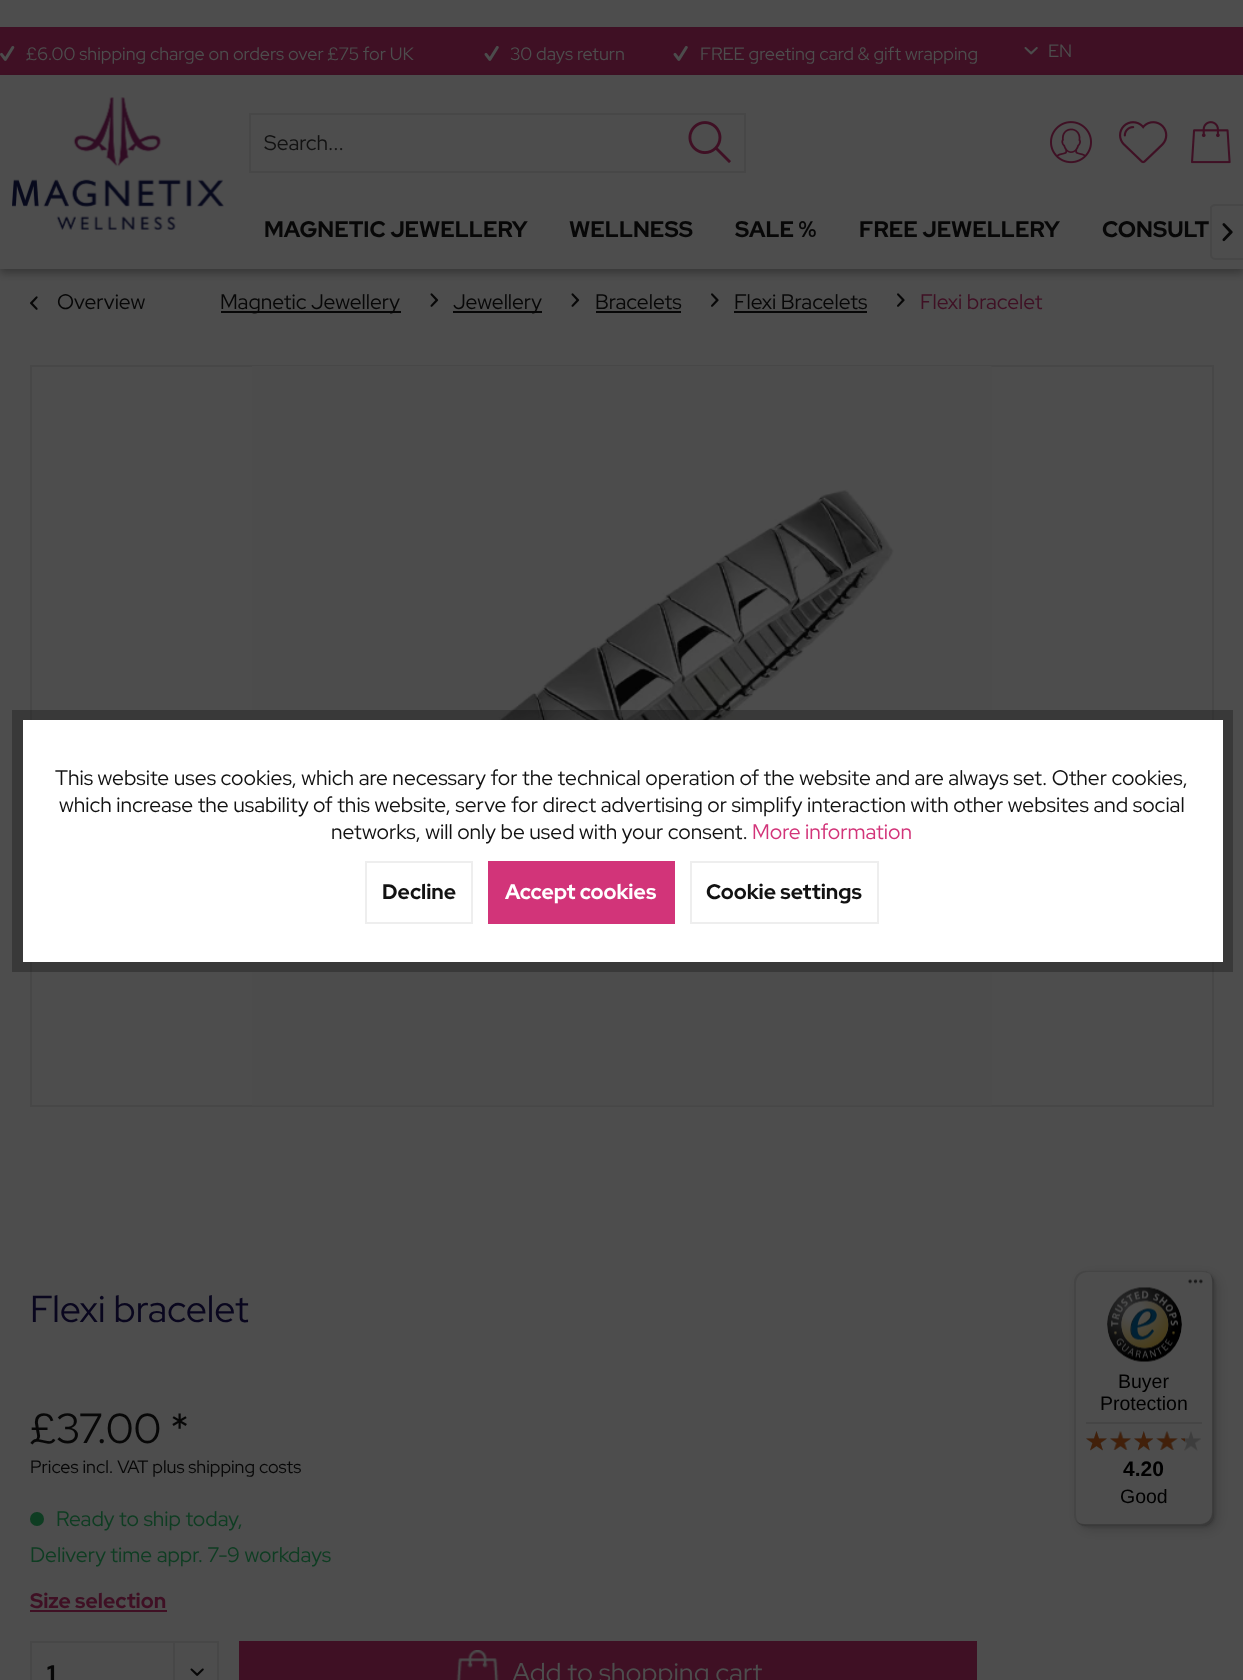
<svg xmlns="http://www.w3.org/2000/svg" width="1243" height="1680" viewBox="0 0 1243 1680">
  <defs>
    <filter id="blur1" x="-50%" y="-200%" width="200%" height="500%"><feGaussianBlur stdDeviation="4.5"/></filter>
    <filter id="blur2" x="-50%" y="-200%" width="200%" height="500%"><feGaussianBlur stdDeviation="6"/></filter>
    <filter id="blur3" x="-50%" y="-200%" width="200%" height="500%"><feGaussianBlur stdDeviation="1.5"/></filter>
  </defs>
  <rect width="100%" height="100%" fill="#4d4d4d"/>
  <rect x="0" y="27" width="1243" height="48" fill="#3f1024"/>
  <image x="0" y="46" width="15" height="15" href="img1.png"/>
  <text x="26" y="60" font-family="Red Hat Display" font-size="18" fill="#4d4d4d">£6.00 shipping charge on orders over £75 for UK</text>
  <image x="484" y="46" width="15" height="15" href="img2.png"/>
  <text x="510" y="60" font-family="Red Hat Display" font-size="18" fill="#4d4d4d">30 days return</text>
  <image x="673" y="46" width="15" height="15" href="img2.png"/>
  <text x="700" y="60" font-family="Red Hat Display" font-size="18" fill="#4d4d4d">FREE greeting card &amp; gift wrapping</text>
  <image x="1024" y="47" width="14" height="8" href="img3.png"/>
  <text x="1048" y="57" font-family="Red Hat Display" font-size="18" fill="#4d4d4d">EN</text>
  <rect x="0" y="80" width="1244" height="193" fill="#000000" fill-opacity="0.3" filter="url(#blur1)"/>
  <rect x="0" y="75" width="1243" height="194" fill="#4d4d4d"/>
  <image x="12" y="97" width="212" height="133" href="img4.png"/>
  <rect x="250" y="114" width="495" height="58" fill="none" stroke="#474747" stroke-width="2"/>
  <text x="264" y="150" font-family="Red Hat Display" font-size="21" fill="#121212">Search...</text>
  <image x="688" y="121" width="43" height="42" href="img5.png"/>
  <image x="1050" y="121" width="42" height="43" href="img6.png"/>
  <image x="1119" y="121" width="49" height="43" href="img7.png"/>
  <image x="1191" y="121" width="40" height="43" href="img8.png"/>
  <text x="264" y="237" font-family="Red Hat Display" font-size="22.5" font-weight="bold" fill="#070707">MAGNETIC JEWELLERY</text>
  <text x="569" y="237" font-family="Red Hat Display" font-size="22.5" font-weight="bold" fill="#070707">WELLNESS</text>
  <text x="735" y="237" font-family="Red Hat Display" font-size="22.5" font-weight="bold" fill="#070707">SALE %</text>
  <text x="859" y="237" font-family="Red Hat Display" font-size="22.5" font-weight="bold" fill="#070707">FREE JEWELLERY</text>
  <text x="1102" y="237" font-family="Red Hat Display" font-size="22.5" font-weight="bold" fill="#070707">CONSULT</text>
  <path d="M1215 204H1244V260H1215C1213 260 1210 257 1210 255V208C1210 206 1213 204 1215 204ZM1215 206H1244V258H1215C1213 258 1212 257 1212 255V208C1212 207 1213 206 1215 206Z" fill="#474747" fill-rule="evenodd"/>
  <image x="1222" y="223" width="11" height="19" href="img9.png"/>
  <image x="30" y="296" width="8" height="14" href="img10.png"/>
  <text x="57" y="309" font-family="Red Hat Display" font-size="21" fill="#070707">Overview</text>
  <rect x="221" y="311" width="180" height="2" fill="#070707"/>
  <text x="220" y="309" font-family="Red Hat Display" font-size="21" fill="#070707">Magnetic Jewellery</text>
  <image x="430" y="293" width="9" height="14" href="img11.png"/>
  <rect x="453" y="311" width="89" height="2" fill="#070707"/>
  <text x="453" y="309" font-family="Red Hat Display" font-size="21" fill="#070707">Jewellery</text>
  <image x="571" y="293" width="9" height="14" href="img11.png"/>
  <text x="595" y="309" font-family="Red Hat Display" font-size="21" fill="#070707">Bracelets</text>
  <rect x="596" y="311" width="85" height="2" fill="#070707"/>
  <image x="711" y="293" width="8" height="14" href="img12.png"/>
  <text x="734" y="309" font-family="Red Hat Display" font-size="21" fill="#070707">Flexi Bracelets</text>
  <rect x="734" y="311" width="133" height="2" fill="#070707"/>
  <image x="897" y="293" width="8" height="14" href="img12.png"/>
  <text x="920" y="309" font-family="Red Hat Display" font-size="21" fill="#3f1024">Flexi bracelet</text>
  <rect x="31" y="366" width="1182" height="740" fill="none" stroke="#474747" stroke-width="2"/>
  <image x="252" y="366" width="740" height="740" href="img13.png"/>
  <text x="30" y="1322" font-family="Red Hat Display" font-size="37.5" fill="#09061e">Flexi bracelet</text>
  <text x="30" y="1443" font-family="Red Hat Display" font-size="42" fill="#070707">£37.00 *</text>
  <text x="30" y="1473" font-family="Red Hat Display" font-size="18" fill="#070707">Prices incl. VAT plus shipping costs</text>
  <circle cx="37" cy="1519" r="7" fill="#0e3d22"/>
  <text x="56" y="1526" font-family="Red Hat Display" font-size="21" fill="#0e3d22">Ready to ship today,</text>
  <text x="30" y="1562" font-family="Red Hat Display" font-size="21" fill="#0e3d22">Delivery time appr. 7-9 workdays</text>
  <text x="30" y="1608" font-family="Red Hat Display" font-size="21" font-weight="bold" fill="#3f1024">Size selection</text>
  <rect x="30" y="1610" width="137" height="2" fill="#3f1024"/>
  <rect x="31" y="1642" width="187" height="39" fill="none" stroke="#474747" stroke-width="2"/>
  <text x="47" y="1682" font-family="Red Hat Display" font-size="24" font-weight="bold" fill="#070707">1</text>
  <rect x="173" y="1643" width="2" height="37" fill="#474747"/>
  <image x="190" y="1668" width="14" height="8" href="img14.png"/>
  <rect x="239" y="1641" width="738" height="39" fill="#3f1024"/>
  <image x="456" y="1650" width="43" height="30" href="img15.png"/>
  <text x="512" y="1682" font-family="Red Hat Display" font-size="27" fill="#4d4d4d">Add to shopping cart</text>
  <rect x="17.5" y="715.5" width="1210" height="251" fill="none" stroke="#000000" stroke-opacity="0.25" stroke-width="11"/>
  <rect x="23" y="720" width="1200" height="242" fill="#ffffff"/>
  <text x="55" y="785" font-family="Red Hat Display" font-size="21" fill="#121212">This website uses cookies, which are necessary for the technical operation of the website and are always set. Other cookies,</text>
  <text x="59" y="812" font-family="Red Hat Display" font-size="21" fill="#121212">which increase the usability of this website, serve for direct advertising or simplify interaction with other websites and social</text>
  <text x="331" y="839" font-family="Red Hat Display" font-size="21" fill="#121212">networks, will only be used with your consent.</text>
  <text x="752" y="839" font-family="Red Hat Display" font-size="21" fill="#d23479">More information</text>
  <rect x="366" y="862" width="106" height="61" fill="none" stroke="#eeeeee" stroke-width="2"/>
  <text x="382" y="899" font-family="Red Hat Display" font-size="21" font-weight="bold" fill="#121212">Decline</text>
  <rect x="488" y="861" width="187" height="63" fill="#d23479"/>
  <text x="505" y="899" font-family="Red Hat Display" font-size="21" font-weight="bold" fill="#ffffff">Accept cookies</text>
  <rect x="691" y="862" width="187" height="61" fill="none" stroke="#eeeeee" stroke-width="2"/>
  <text x="706" y="899" font-family="Red Hat Display" font-size="21" font-weight="bold" fill="#121212">Cookie settings</text>
  <rect x="1079" y="1275" width="139" height="255" rx="12" fill="#000000" fill-opacity="0.15" filter="url(#blur2)"/>
  <rect x="1076" y="1272" width="139" height="255" rx="12" fill="#000000" fill-opacity="0.15" filter="url(#blur3)"/>
  <rect x="1074" y="1271" width="140" height="255" rx="12" fill="#4d4d4d"/>
  <path d="M1088 1272H1203C1206 1272 1208 1273 1210 1274C1208 1272 1205 1271 1202 1271H1086C1079 1271 1074 1276 1074 1283V1514C1074 1519 1077 1523 1081 1525C1078 1523 1076 1519 1076 1515V1284C1076 1277 1081 1272 1088 1272Z" fill="#000000" fill-opacity="0.1"/>
  <path d="M1076 1521C1079 1524 1082 1526 1086 1526H1202C1209 1526 1214 1521 1214 1514V1283C1214 1279 1212 1276 1210 1274C1211 1276 1212 1278 1212 1281V1512C1212 1519 1207 1524 1200 1524H1084C1081 1524 1079 1523 1076 1521Z" fill="#000000" fill-opacity="0.2"/>
  <path d="M1077 1522C1079 1524 1082 1526 1086 1526H1202C1209 1526 1214 1521 1214 1514V1283C1214 1279 1212 1276 1210 1274C1212 1276 1213 1279 1213 1282V1513C1213 1519 1207 1525 1201 1525H1085C1082 1525 1079 1524 1077 1522Z" fill="#0f0f0f" fill-opacity="0.2"/>
  <path d="M1076 1520C1078 1524 1081 1526 1086 1526H1202C1209 1526 1214 1521 1214 1514V1283C1214 1279 1212 1276 1210 1274C1212 1276 1213 1279 1213 1282V1513C1213 1519 1207 1525 1201 1525H1085C1081 1525 1078 1523 1076 1520Z" fill="#4d4d4d" fill-opacity="0.3"/>
  <image x="1188" y="1279" width="15" height="5" href="img16.png"/>
  <image x="1107" y="1287" width="75" height="75" href="img17.png"/>
  <text x="1118" y="1388" font-family="Liberation Sans" font-size="19.5" fill="#000000">Buyer</text>
  <text x="1100" y="1410" font-family="Liberation Sans" font-size="19.5" fill="#000000">Protection</text>
  <rect x="1086" y="1422" width="116" height="2" fill="#454545"/>
  <image x="1086" y="1431" width="21" height="20" href="img18.png"/>
  <image x="1110" y="1431" width="21" height="19" href="img19.png"/>
  <image x="1134" y="1431" width="19" height="20" href="img20.png"/>
  <image x="1156" y="1431" width="22" height="19" href="img21.png"/>
  <image x="1181" y="1431" width="20" height="20" href="img22.png"/>
  <image x="1086" y="1431" width="21" height="20" href="img23.png"/>
  <image x="1110" y="1431" width="21" height="19" href="img24.png"/>
  <image x="1134" y="1431" width="20" height="20" href="img25.png"/>
  <image x="1156" y="1431" width="22" height="19" href="img26.png"/>
  <image x="1181" y="1438" width="4" height="13" href="img27.png"/>
  <text x="1123" y="1476" font-family="Liberation Sans" font-size="21" font-weight="bold" fill="#000000">4.20</text>
  <text x="1120" y="1503" font-family="Liberation Sans" font-size="19.5" fill="#000000">Good</text>
</svg>
